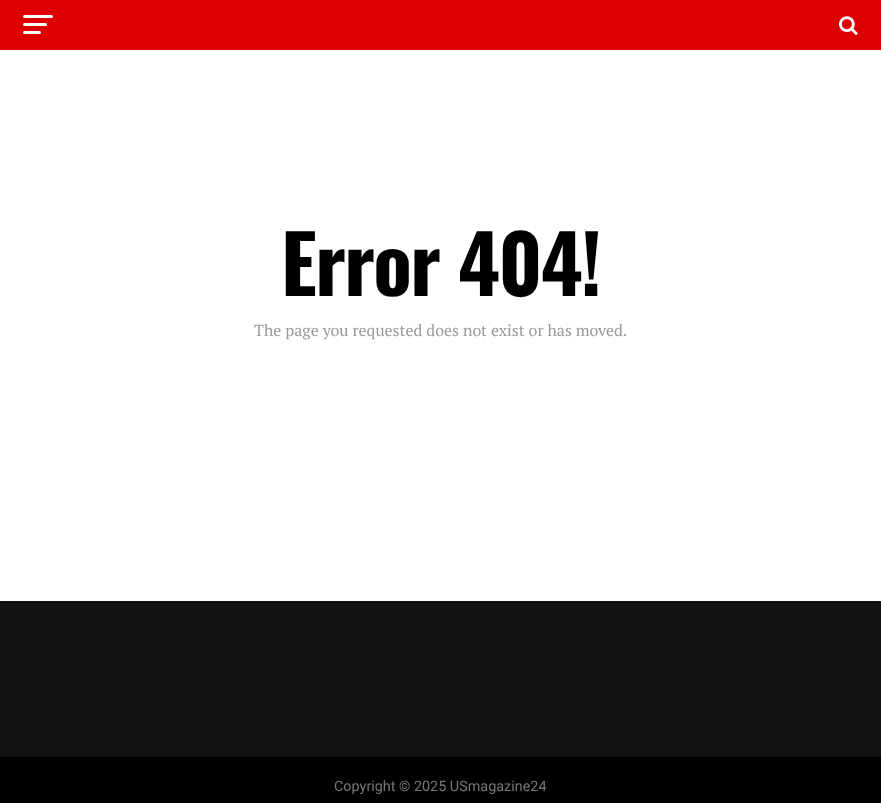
<svg xmlns="http://www.w3.org/2000/svg" width="881" height="803" viewBox="0 0 881 803">
  <rect width="100%" height="100%" fill="#ffffff"/>
  <rect x="0" y="0" width="881" height="50" fill="#dd0000"/>
  <rect x="23" y="15" width="30" height="3" rx="1.5" fill="#ffffff"/>
  <rect x="23" y="23" width="24" height="3" rx="1.5" fill="#ffffff"/>
  <rect x="23" y="31" width="18" height="3" rx="1.5" fill="#ffffff"/>
  <image x="839" y="16" width="19" height="19" href="img1.png"/>
  <text x="281" y="296" font-family="Oswald" font-size="80" font-weight="bold" letter-spacing="-1.6" fill="#000000">Error 404!</text>
  <text x="254" y="336" font-family="PT Serif" font-size="16" fill="#999999">The page you requested does not exist or has moved.</text>
  <rect x="0" y="601" width="881" height="156" fill="#111111"/>
  <rect x="0" y="757" width="881" height="46" fill="#000000"/>
  <text x="334" y="791" font-family="Roboto" font-size="14.4" fill="#777777">Copyright © 2025 USmagazine24</text>
</svg>
